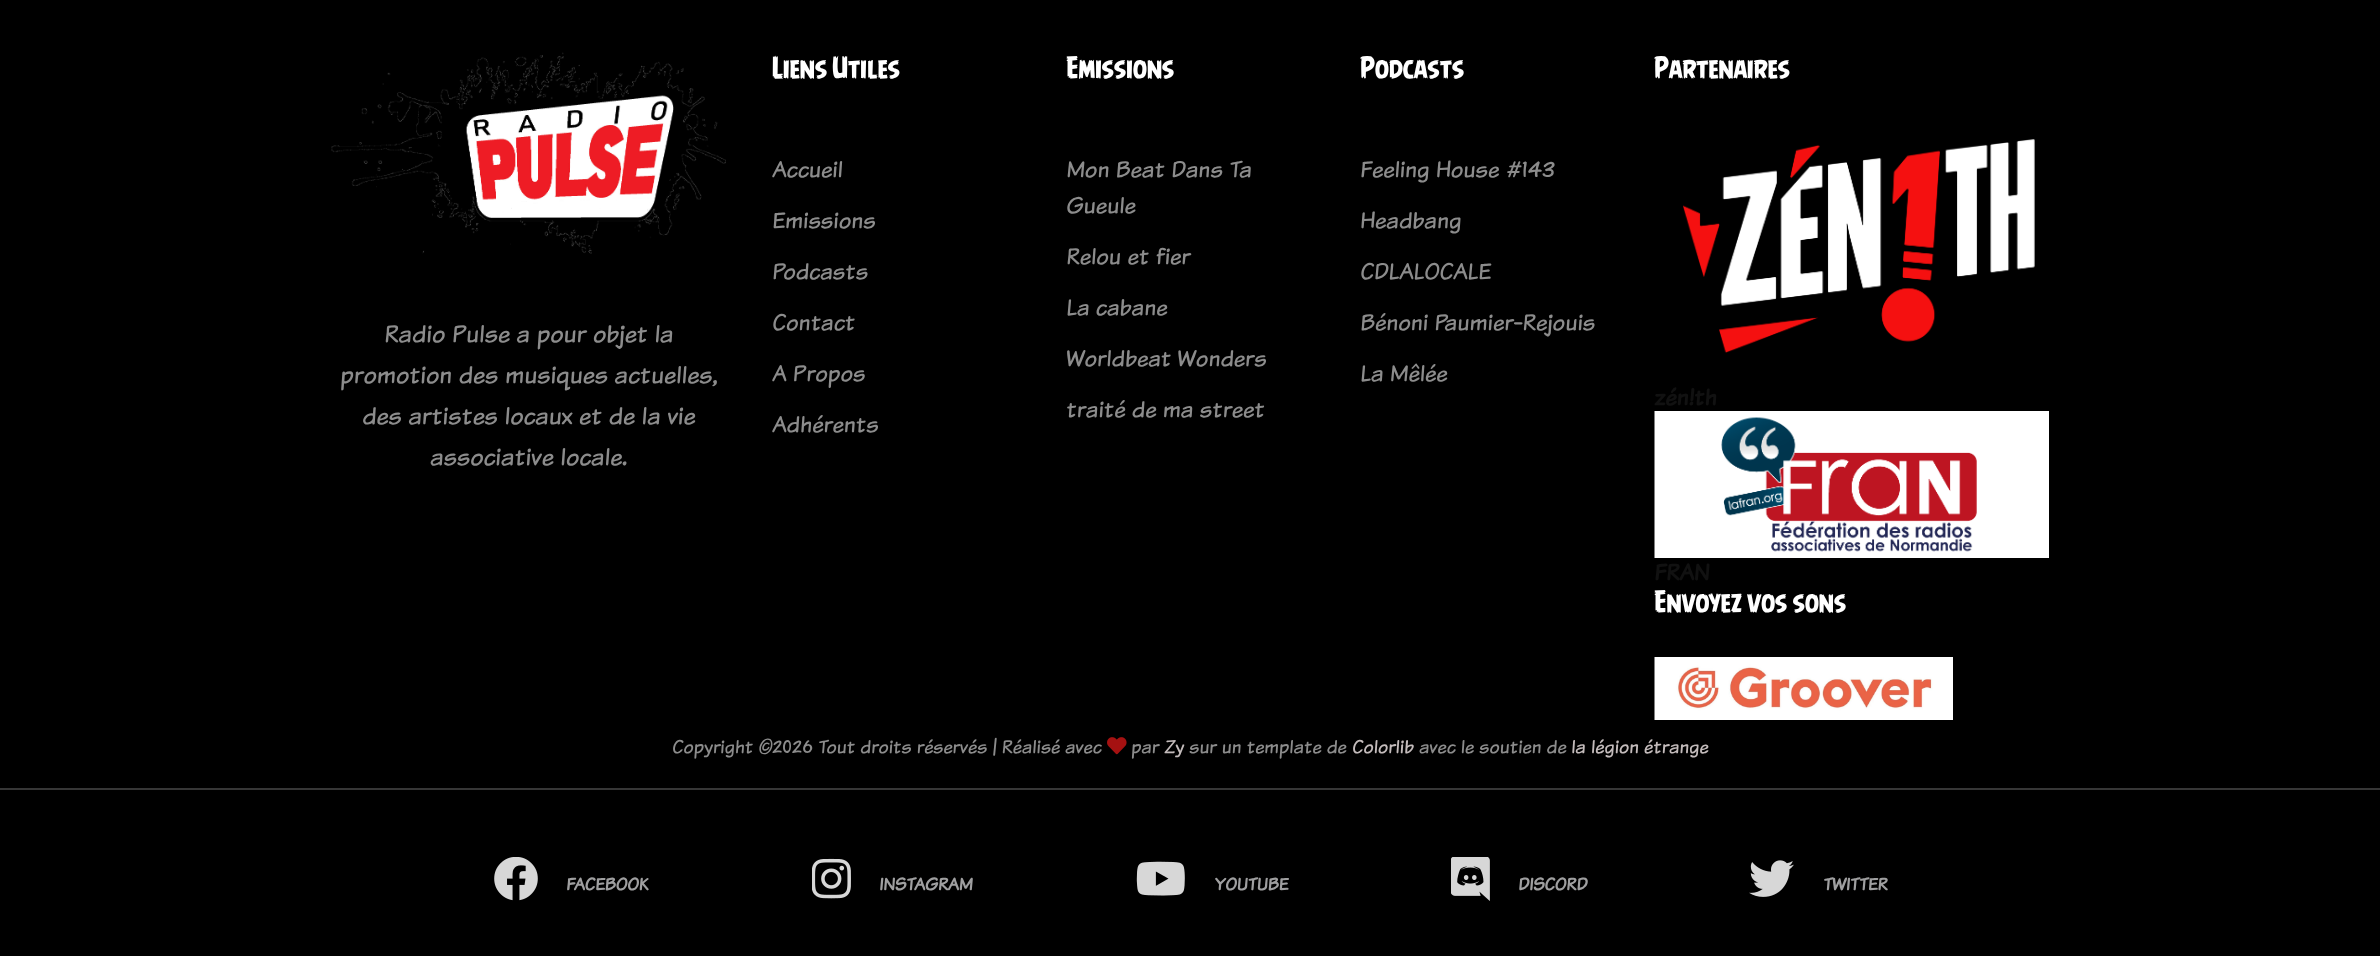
<svg xmlns="http://www.w3.org/2000/svg" width="2380" height="956" viewBox="0 0 2380 956">
  <rect width="100%" height="100%" fill="#000000"/>
  <image x="331" y="52" width="395" height="202" href="img1.png"/>
  <text x="384" y="342" font-family="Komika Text" font-size="25.5" fill="#8c8c8c">Radio Pulse a pour objet la</text>
  <text x="340" y="383" font-family="Komika Text" font-size="25.5" fill="#8c8c8c">promotion des musiques actuelles,</text>
  <text x="362" y="424" font-family="Komika Text" font-size="25.5" fill="#8c8c8c">des artistes locaux et de la vie</text>
  <text x="430" y="465" font-family="Komika Text" font-size="25.5" fill="#8c8c8c">associative locale.</text>
  <text x="772" y="78" font-family="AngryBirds" font-size="27" font-weight="bold" fill="#ffffff">Liens Utiles</text>
  <text x="772" y="177" font-family="Komika Text" font-size="24" fill="#8c8c8c">Accueil</text>
  <text x="772" y="228" font-family="Komika Text" font-size="24" fill="#8c8c8c">Emissions</text>
  <text x="772" y="279" font-family="Komika Text" font-size="24" fill="#8c8c8c">Podcasts</text>
  <text x="772" y="330" font-family="Komika Text" font-size="24" fill="#8c8c8c">Contact</text>
  <text x="772" y="381" font-family="Komika Text" font-size="24" fill="#8c8c8c">A Propos</text>
  <text x="772" y="432" font-family="Komika Text" font-size="24" fill="#8c8c8c">Adhérents</text>
  <text x="1066" y="78" font-family="AngryBirds" font-size="27" font-weight="bold" fill="#ffffff">Emissions</text>
  <text x="1066" y="177" font-family="Komika Text" font-size="24" fill="#8c8c8c">Mon Beat Dans Ta</text>
  <text x="1066" y="213" font-family="Komika Text" font-size="24" fill="#8c8c8c">Gueule</text>
  <text x="1066" y="264" font-family="Komika Text" font-size="24" fill="#8c8c8c">Relou et fier</text>
  <text x="1066" y="315" font-family="Komika Text" font-size="24" fill="#8c8c8c">La cabane</text>
  <text x="1066" y="366" font-family="Komika Text" font-size="24" fill="#8c8c8c">Worldbeat Wonders</text>
  <text x="1066" y="417" font-family="Komika Text" font-size="24" fill="#8c8c8c">traité de ma street</text>
  <text x="1360" y="78" font-family="AngryBirds" font-size="27" font-weight="bold" fill="#ffffff">Podcasts</text>
  <text x="1360" y="177" font-family="Komika Text" font-size="24" fill="#8c8c8c">Feeling House #143</text>
  <text x="1360" y="228" font-family="Komika Text" font-size="24" fill="#8c8c8c">Headbang</text>
  <text x="1360" y="279" font-family="Komika Text" font-size="24" fill="#8c8c8c">CDLALOCALE</text>
  <text x="1360" y="330" font-family="Komika Text" font-size="24" fill="#8c8c8c">Bénoni Paumier-Rejouis</text>
  <text x="1360" y="381" font-family="Komika Text" font-size="24" fill="#8c8c8c">La Mêlée</text>
  <text x="1654" y="78" font-family="AngryBirds" font-size="27" font-weight="bold" fill="#ffffff">Partenaires</text>
  <image x="1683" y="139" width="352" height="214" href="img2.png"/>
  <text x="1654" y="405" font-family="Komika Text" font-size="24" font-weight="bold" fill="#111111">zén!th</text>
  <image x="1654" y="411" width="395" height="147" href="img3.png"/>
  <text x="1654" y="580" font-family="Komika Text" font-size="24" font-weight="bold" fill="#111111">FRAN</text>
  <text x="1654" y="612" font-family="AngryBirds" font-size="27" font-weight="bold" fill="#ffffff">Envoyez vos sons</text>
  <image x="1654" y="657" width="299" height="63" href="img4.png"/>
  <text x="672" y="753" font-family="Komika Text" font-size="19.5" fill="#8c8c8c">Copyright ©2026 Tout droits réservés | Réalisé avec</text>
  <image x="1107" y="737" width="20" height="18" href="img5.png"/>
  <text x="1131" y="753" font-family="Komika Text" font-size="19.5" fill="#8c8c8c">par</text>
  <text x="1164" y="753" font-family="Komika Text" font-size="19.5" fill="#c3bbbb">Zy</text>
  <text x="1189" y="753" font-family="Komika Text" font-size="19.5" fill="#8c8c8c">sur un template de</text>
  <text x="1352" y="753" font-family="Komika Text" font-size="19.5" fill="#c3bbbb">Colorlib</text>
  <text x="1419" y="753" font-family="Komika Text" font-size="19.5" fill="#8c8c8c">avec le soutien de</text>
  <text x="1571" y="753" font-family="Komika Text" font-size="19.5" fill="#c3bbbb">la légion étrange</text>
  <rect x="0" y="788" width="2380" height="2" fill="#363636"/>
  <image x="494" y="857" width="44" height="44" href="img6.png"/>
  <text x="566" y="890" font-family="Komika Text" font-size="18" font-weight="bold" fill="#9f9fa0">FACEBOOK</text>
  <image x="812" y="858" width="39" height="41" href="img7.png"/>
  <text x="879" y="890" font-family="Komika Text" font-size="18" font-weight="bold" fill="#9f9fa0">INSTAGRAM</text>
  <image x="1136" y="861" width="49" height="35" href="img8.png"/>
  <text x="1214" y="890" font-family="Komika Text" font-size="18" font-weight="bold" fill="#9f9fa0">YOUTUBE</text>
  <image x="1451" y="857" width="39" height="44" href="img9.png"/>
  <text x="1518" y="890" font-family="Komika Text" font-size="18" font-weight="bold" fill="#9f9fa0">DISCORD</text>
  <image x="1749" y="860" width="45" height="37" href="img10.png"/>
  <text x="1823" y="890" font-family="Komika Text" font-size="18" font-weight="bold" fill="#9f9fa0">TWITTER</text>
</svg>
